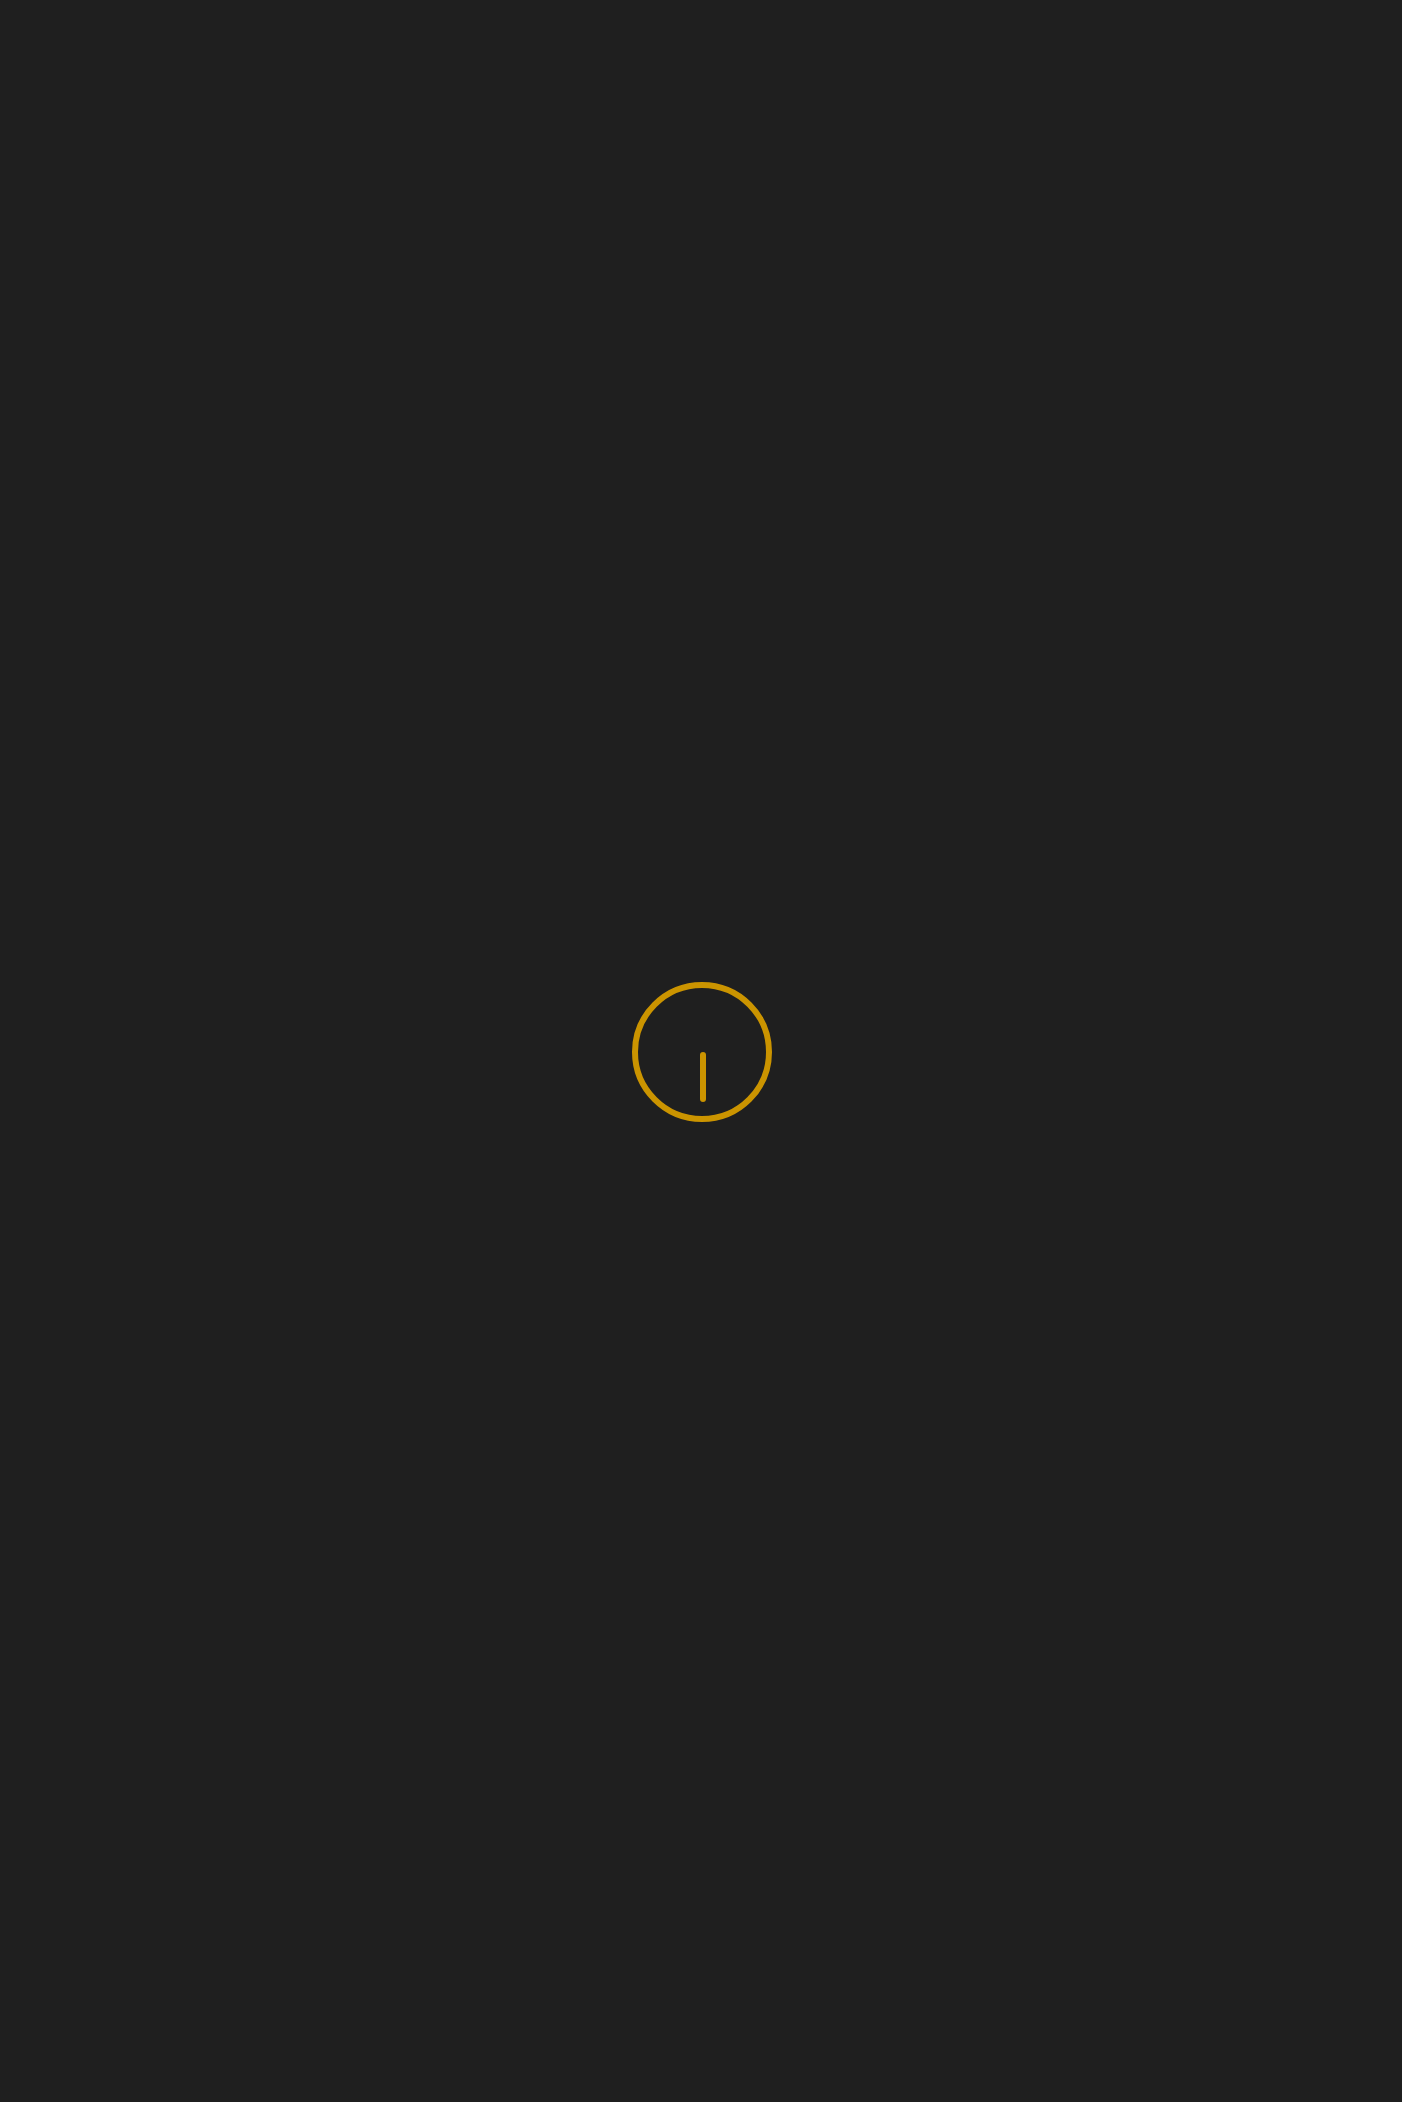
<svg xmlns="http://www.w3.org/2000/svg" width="1402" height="2102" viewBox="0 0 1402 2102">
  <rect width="100%" height="100%" fill="#1f1f1f"/>
  <circle cx="702" cy="1052" r="67" fill="none" stroke="#cb9400" stroke-width="6"/>
  <rect x="700" y="1052" width="6" height="50" rx="3" fill="#cb9400"/>
</svg>
